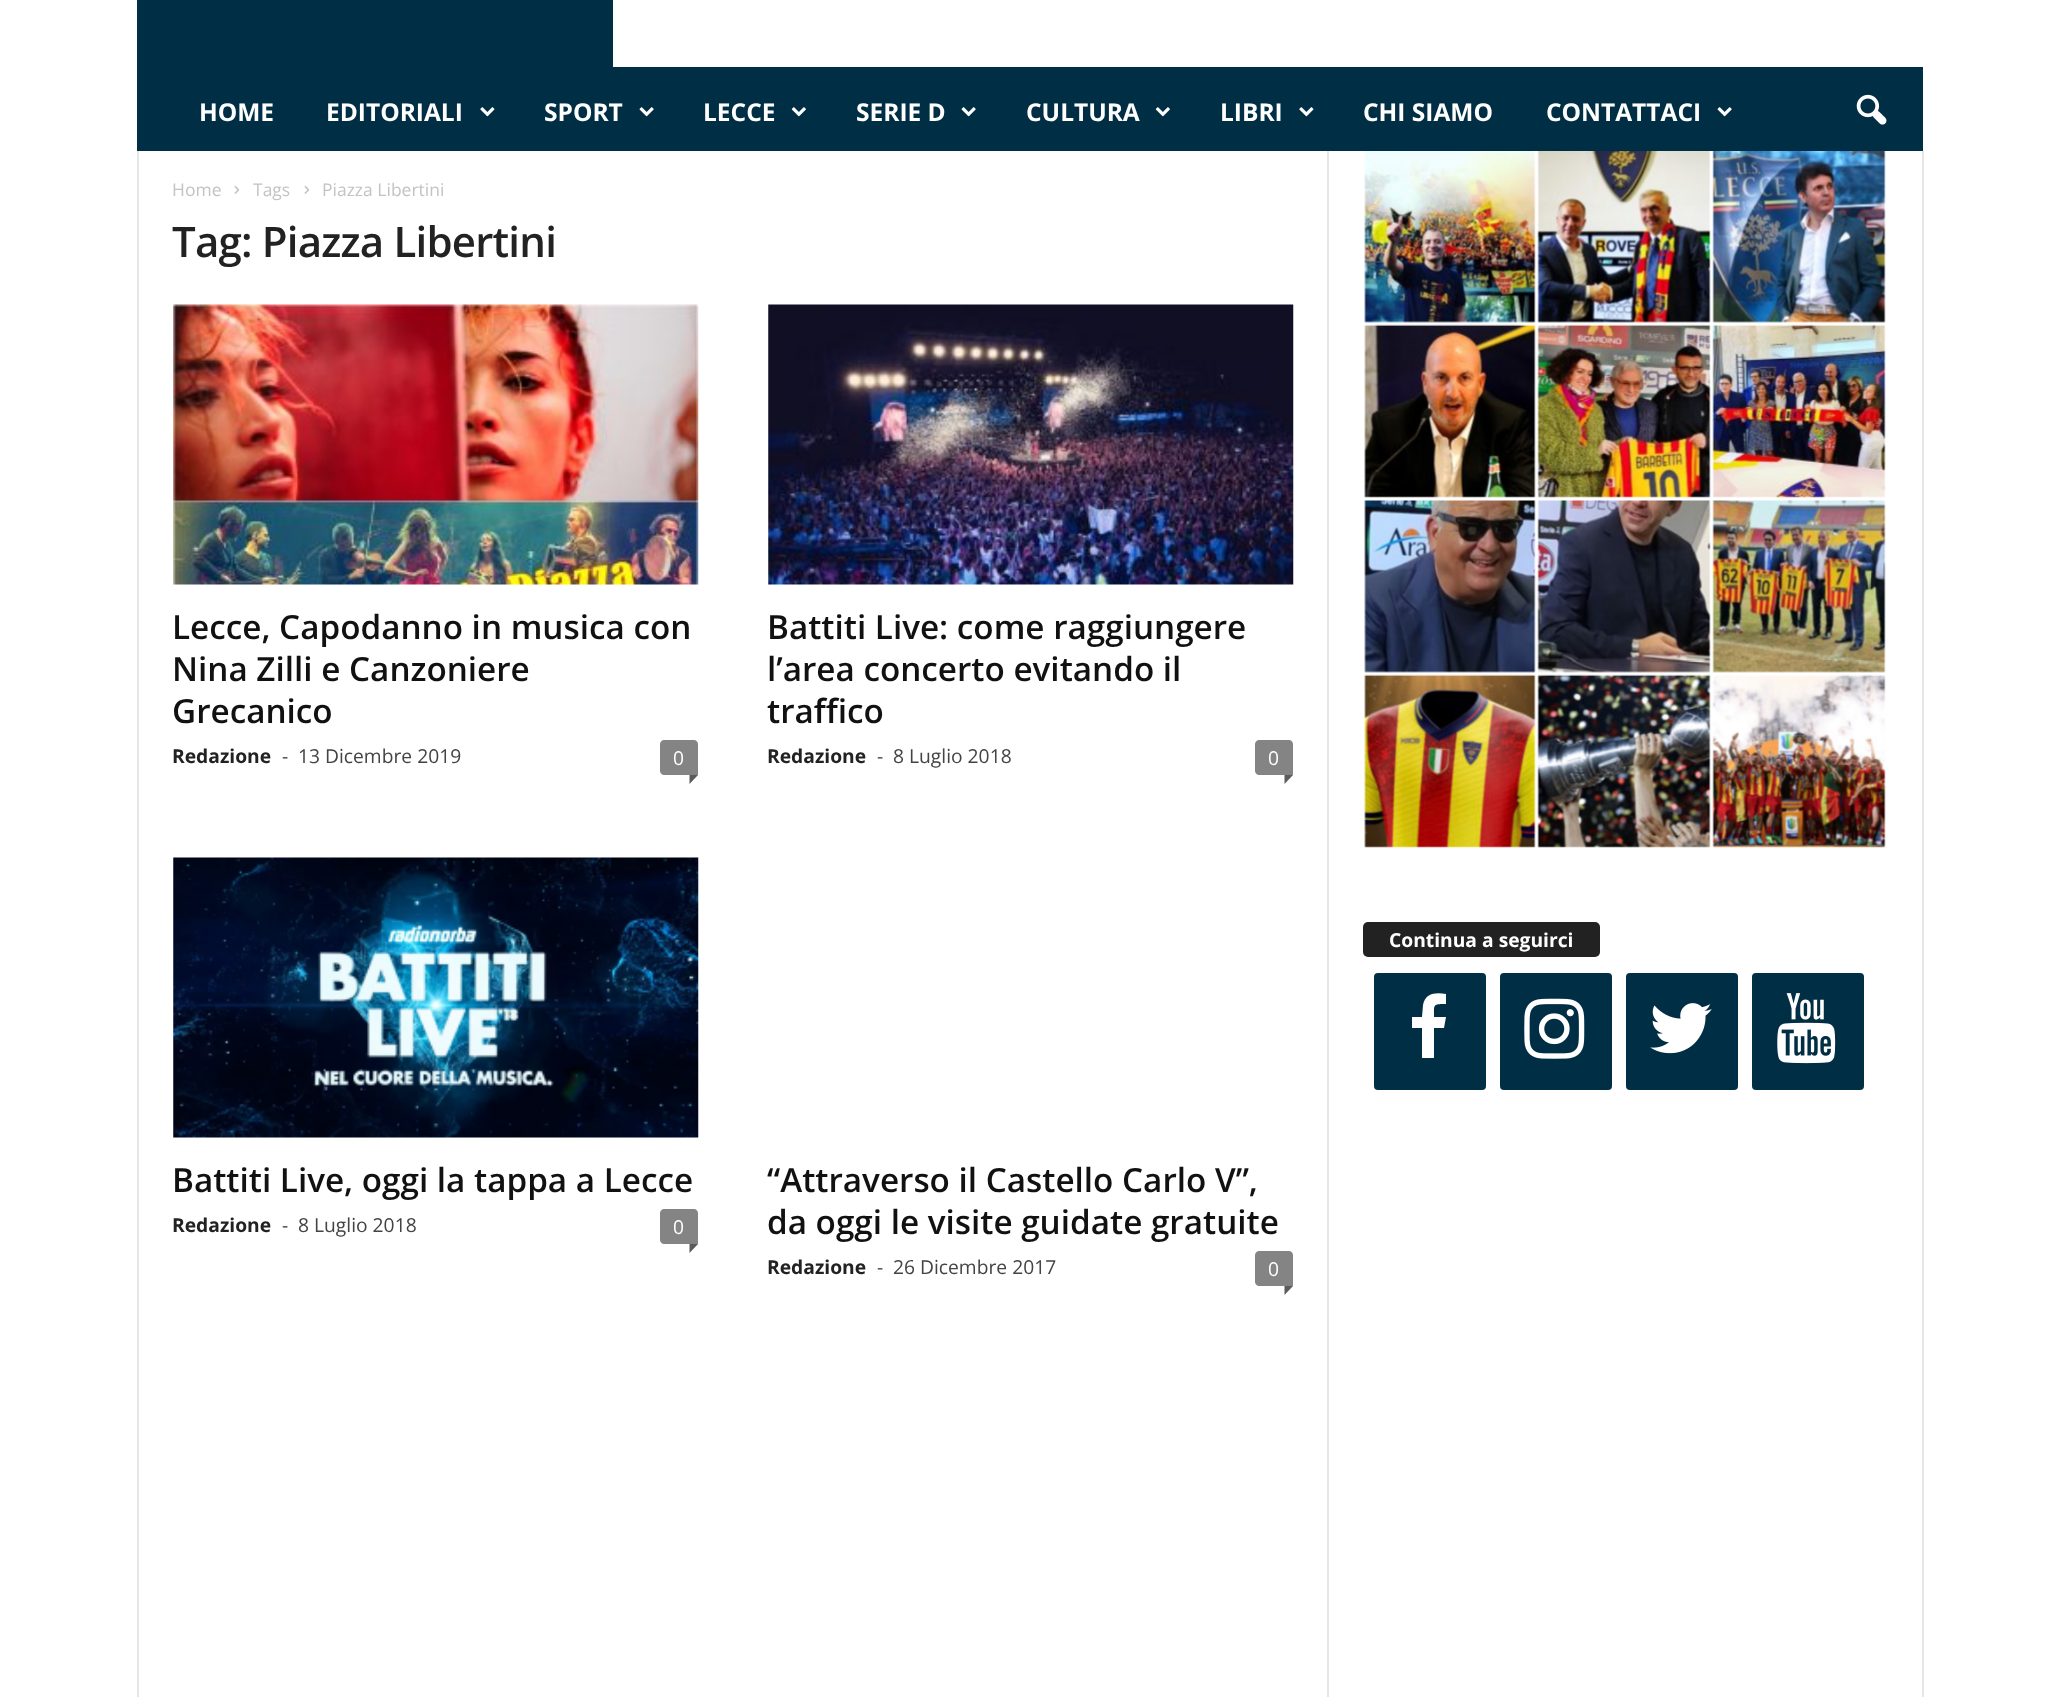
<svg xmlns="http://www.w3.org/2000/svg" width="2057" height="1697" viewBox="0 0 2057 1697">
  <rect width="100%" height="100%" fill="#ffffff"/>
  <rect x="137" y="0" width="476" height="67" fill="#002e44"/>
  <rect x="137" y="67" width="1786" height="84" fill="#002e44"/>
  <text x="199" y="121" font-family="Open Sans" font-size="24.5" font-weight="bold" fill="#ffffff">HOME</text>
  <text x="326" y="121" font-family="Open Sans" font-size="24.5" font-weight="bold" fill="#ffffff">EDITORIALI</text>
  <image x="480" y="107" width="15" height="10" href="img1.png"/>
  <text x="544" y="121" font-family="Open Sans" font-size="24.5" font-weight="bold" fill="#ffffff">SPORT</text>
  <image x="639" y="107" width="15" height="10" href="img2.png"/>
  <text x="703" y="121" font-family="Open Sans" font-size="24.5" font-weight="bold" fill="#ffffff">LECCE</text>
  <image x="791" y="107" width="15" height="10" href="img3.png"/>
  <text x="856" y="121" font-family="Open Sans" font-size="24.5" font-weight="bold" fill="#ffffff">SERIE D</text>
  <image x="961" y="107" width="15" height="10" href="img2.png"/>
  <text x="1026" y="121" font-family="Open Sans" font-size="24.5" font-weight="bold" fill="#ffffff">CULTURA</text>
  <image x="1155" y="107" width="15" height="10" href="img3.png"/>
  <text x="1220" y="121" font-family="Open Sans" font-size="24.5" font-weight="bold" fill="#ffffff">LIBRI</text>
  <image x="1299" y="107" width="15" height="10" href="img1.png"/>
  <text x="1363" y="121" font-family="Open Sans" font-size="24.5" font-weight="bold" fill="#ffffff">CHI SIAMO</text>
  <text x="1546" y="121" font-family="Open Sans" font-size="24.5" font-weight="bold" fill="#ffffff">CONTATTACI</text>
  <image x="1717" y="107" width="15" height="10" href="img2.png"/>
  <image x="1856" y="94" width="31" height="31" href="img4.png"/>
  <rect x="137" y="151" width="2" height="1546" fill="#e6e6e6"/>
  <text x="172" y="196" font-family="Open Sans" font-size="17.5" fill="#c3c3c3">Home</text>
  <image x="234" y="185" width="6" height="9" href="img5.png"/>
  <text x="253" y="196" font-family="Open Sans" font-size="17.5" fill="#c3c3c3">Tags</text>
  <image x="304" y="185" width="6" height="9" href="img5.png"/>
  <text x="322" y="196" font-family="Open Sans" font-size="17.5" fill="#c3c3c3">Piazza Libertini</text>
  <text x="172" y="257" font-family="Open Sans" font-size="42" font-weight="600" letter-spacing="-0.8" fill="#222222">Tag: Piazza Libertini</text>
  <image x="173" y="304" width="526" height="281" href="img6.png"/>
  <text x="172" y="639" font-family="Open Sans" font-size="33.25" font-weight="600" fill="#111111">Lecce, Capodanno in musica con</text>
  <text x="172" y="681" font-family="Open Sans" font-size="33.25" font-weight="600" fill="#111111">Nina Zilli e Canzoniere</text>
  <text x="172" y="723" font-family="Open Sans" font-size="33.25" font-weight="600" fill="#111111">Grecanico</text>
  <text x="172" y="763" font-family="Open Sans" font-size="19.25" font-weight="bold" fill="#222222">Redazione</text>
  <text x="282" y="763" font-family="Open Sans" font-size="19.25" fill="#444444">-</text>
  <text x="298" y="763" font-family="Open Sans" font-size="19.25" fill="#444444">13 Dicembre 2019</text>
  <path d="M664 740H694C696 740 698 742 698 744V775H664C662 775 660 773 660 771V744C660 742 662 740 664 740Z" fill="#848484"/>
  <text x="673" y="765" font-family="Open Sans" font-size="19.25" fill="#ffffff">0</text>
  <path d="M689.5 775H698L689.5 784Z" fill="#5b5b5b"/>
  <image x="768" y="304" width="526" height="281" href="img7.png"/>
  <text x="767" y="639" font-family="Open Sans" font-size="33.25" font-weight="600" fill="#111111">Battiti Live: come raggiungere</text>
  <text x="767" y="681" font-family="Open Sans" font-size="33.25" font-weight="600" fill="#111111">l’area concerto evitando il</text>
  <text x="767" y="723" font-family="Open Sans" font-size="33.25" font-weight="600" fill="#111111">traffico</text>
  <text x="767" y="763" font-family="Open Sans" font-size="19.25" font-weight="bold" fill="#222222">Redazione</text>
  <text x="877" y="763" font-family="Open Sans" font-size="19.25" fill="#444444">-</text>
  <text x="893" y="763" font-family="Open Sans" font-size="19.25" fill="#444444">8 Luglio 2018</text>
  <path d="M1259 740H1289C1291 740 1293 742 1293 744V775H1259C1257 775 1255 773 1255 771V744C1255 742 1257 740 1259 740Z" fill="#848484"/>
  <text x="1268" y="765" font-family="Open Sans" font-size="19.25" fill="#ffffff">0</text>
  <path d="M1284.5 775H1293L1284.5 784Z" fill="#5b5b5b"/>
  <image x="173" y="857" width="526" height="281" href="img8.png"/>
  <text x="172" y="1192" font-family="Open Sans" font-size="33.25" font-weight="600" fill="#111111">Battiti Live, oggi la tappa a Lecce</text>
  <text x="172" y="1232" font-family="Open Sans" font-size="19.25" font-weight="bold" fill="#222222">Redazione</text>
  <text x="282" y="1232" font-family="Open Sans" font-size="19.25" fill="#444444">-</text>
  <text x="298" y="1232" font-family="Open Sans" font-size="19.25" fill="#444444">8 Luglio 2018</text>
  <path d="M664 1209H694C696 1209 698 1211 698 1213V1244H664C662 1244 660 1242 660 1240V1213C660 1211 662 1209 664 1209Z" fill="#848484"/>
  <text x="673" y="1234" font-family="Open Sans" font-size="19.25" fill="#ffffff">0</text>
  <path d="M689.5 1244H698L689.5 1253Z" fill="#5b5b5b"/>
  <text x="767" y="1192" font-family="Open Sans" font-size="33.25" font-weight="600" fill="#111111">“Attraverso il Castello Carlo V”,</text>
  <text x="767" y="1234" font-family="Open Sans" font-size="33.25" font-weight="600" fill="#111111">da oggi le visite guidate gratuite</text>
  <text x="767" y="1274" font-family="Open Sans" font-size="19.25" font-weight="bold" fill="#222222">Redazione</text>
  <text x="877" y="1274" font-family="Open Sans" font-size="19.25" fill="#444444">-</text>
  <text x="893" y="1274" font-family="Open Sans" font-size="19.25" fill="#444444">26 Dicembre 2017</text>
  <path d="M1259 1251H1289C1291 1251 1293 1253 1293 1255V1286H1259C1257 1286 1255 1284 1255 1282V1255C1255 1253 1257 1251 1259 1251Z" fill="#848484"/>
  <text x="1268" y="1276" font-family="Open Sans" font-size="19.25" fill="#ffffff">0</text>
  <path d="M1284.5 1286H1293L1284.5 1295Z" fill="#5b5b5b"/>
  <rect x="1327" y="151" width="2" height="1546" fill="#e6e6e6"/>
  <image x="1364" y="151" width="172" height="172" href="img9.png"/>
  <image x="1537" y="151" width="174" height="172" href="img10.png"/>
  <image x="1712" y="151" width="174" height="172" href="img11.png"/>
  <image x="1364" y="324" width="172" height="174" href="img12.png"/>
  <image x="1537" y="324" width="174" height="174" href="img13.png"/>
  <image x="1712" y="324" width="174" height="174" href="img14.png"/>
  <image x="1364" y="500" width="172" height="173" href="img15.png"/>
  <image x="1537" y="500" width="174" height="173" href="img16.png"/>
  <image x="1712" y="500" width="174" height="173" href="img17.png"/>
  <image x="1364" y="674" width="172" height="174" href="img18.png"/>
  <image x="1537" y="674" width="174" height="174" href="img19.png"/>
  <image x="1712" y="674" width="174" height="174" href="img20.png"/>
  <rect x="1363" y="922" width="237" height="35" rx="5" fill="#222222"/>
  <text x="1389" y="947" font-family="Open Sans" font-size="19.25" font-weight="bold" fill="#ffffff">Continua a seguirci</text>
  <rect x="1374" y="973" width="112" height="117" rx="4" fill="#002e44"/>
  <path d="M1446 994V1004C1433 1004 1434 1004 1434 1017H1446L1444 1028H1434V1058H1422V1028H1412V1017H1422L1423 1005C1425 993 1436 992 1446 994Z" fill="#ffffff"/>
  <rect x="1500" y="973" width="112" height="117" rx="4" fill="#002e44"/>
  <image x="1524" y="998" width="61" height="61" href="img21.png"/>
  <rect x="1626" y="973" width="112" height="117" rx="4" fill="#002e44"/>
  <image x="1650" y="1003" width="62" height="51" href="img22.png"/>
  <rect x="1752" y="973" width="112" height="117" rx="4" fill="#002e44"/>
  <image x="1777" y="993" width="59" height="71" href="img23.png"/>
  <rect x="1922" y="151" width="2" height="1546" fill="#e6e6e6"/>
</svg>
